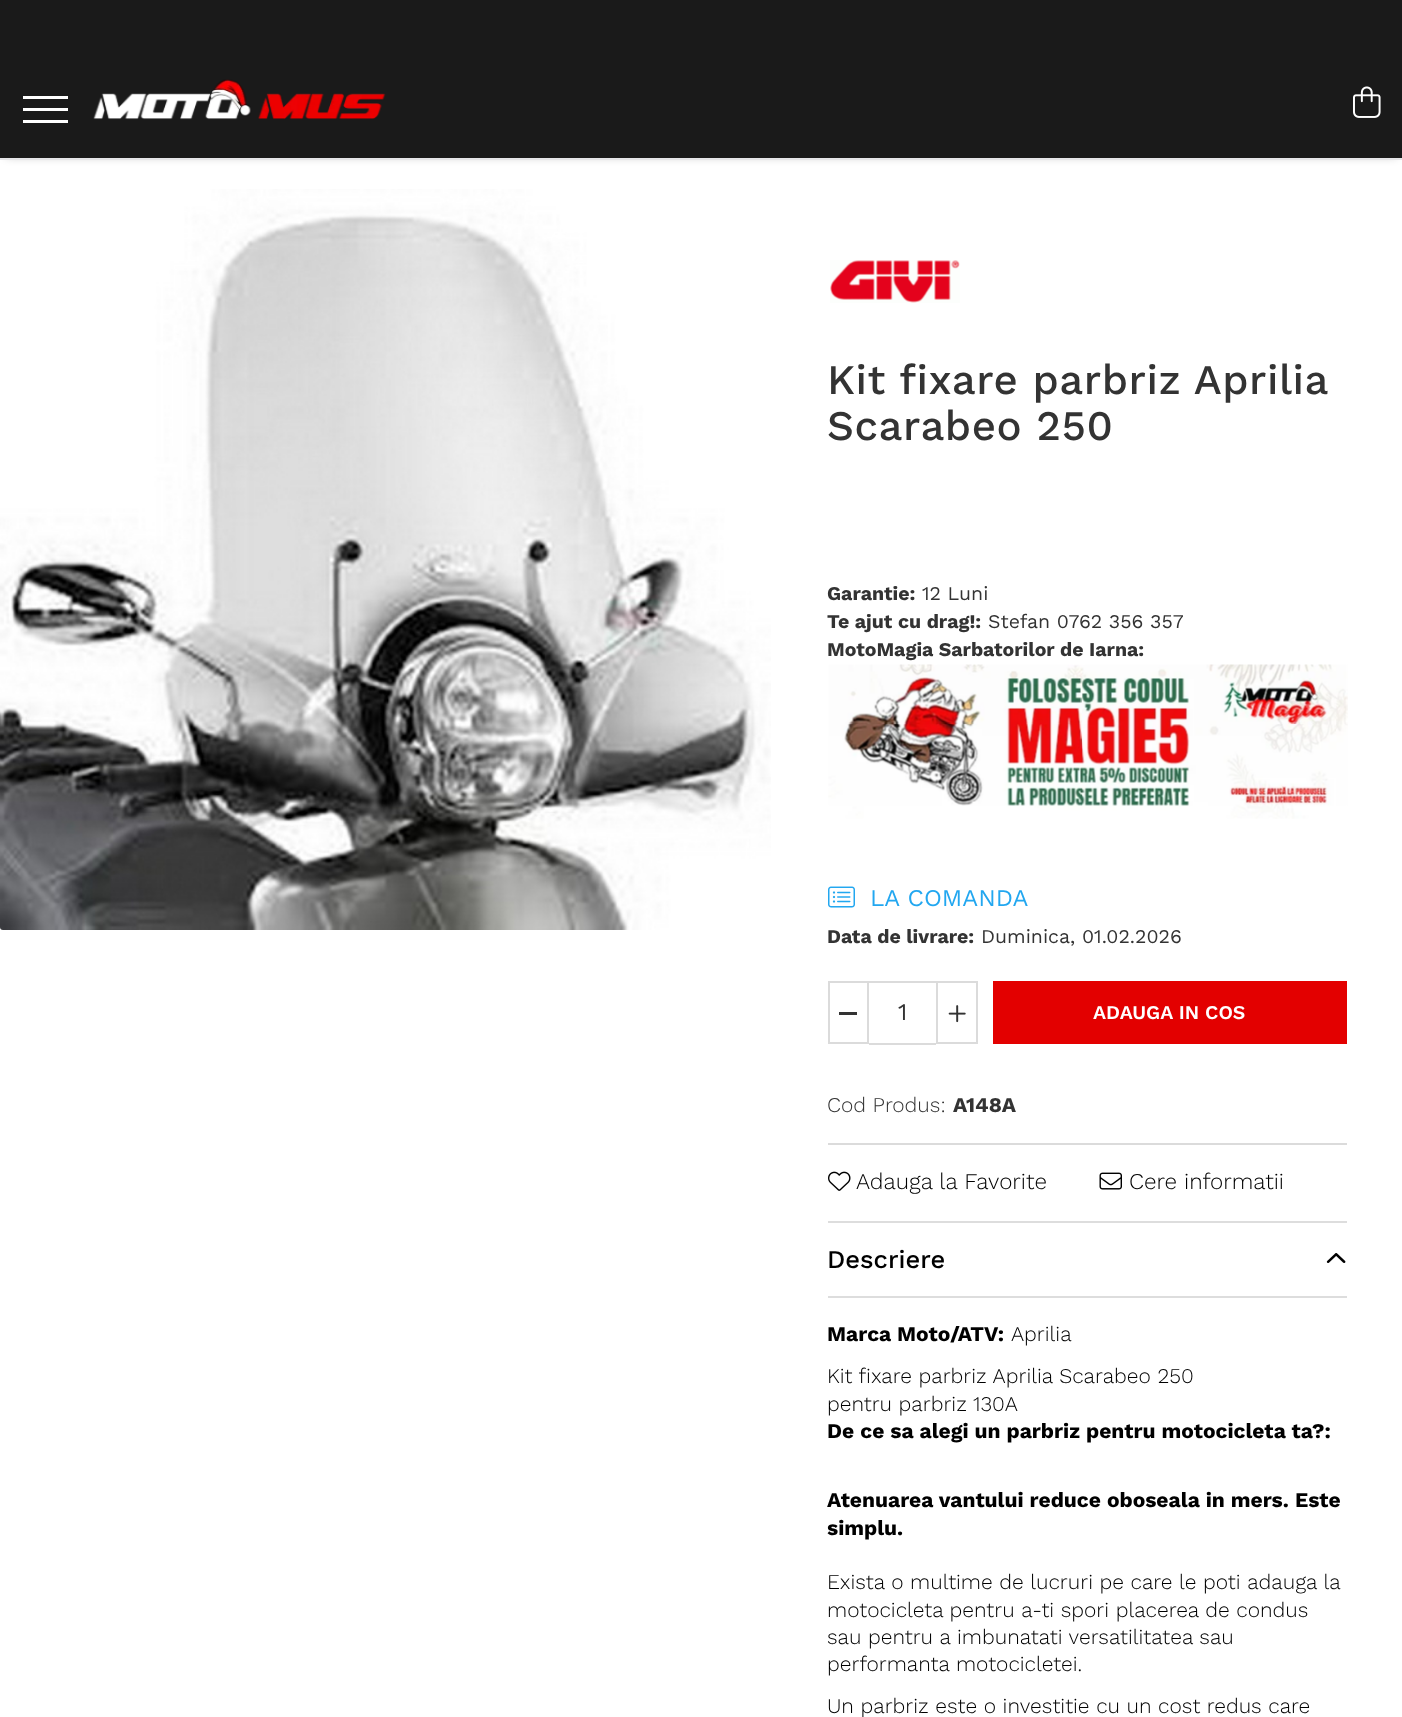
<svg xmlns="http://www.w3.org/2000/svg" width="1402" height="1717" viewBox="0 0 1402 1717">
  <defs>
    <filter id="blur1" x="-50%" y="-200%" width="200%" height="500%"><feGaussianBlur stdDeviation="5"/></filter>
  </defs>
  <rect width="100%" height="100%" fill="#ffffff"/>
  <rect x="6" y="9" width="1391" height="147" fill="#000000" fill-opacity="0.3" filter="url(#blur1)"/>
  <rect x="0" y="0" width="1402" height="158" fill="#1a1a1a"/>
  <rect x="0" y="158" width="1402" height="2" fill="#e5e6e8"/>
  <rect x="23" y="108" width="45" height="3" fill="#ffffff"/>
  <rect x="23" y="96" width="45" height="3" fill="#ffffff"/>
  <rect x="23" y="120" width="45" height="3" fill="#ffffff"/>
  <image x="93" y="79" width="293" height="41" href="img1.png"/>
  <image x="1353" y="86" width="28" height="32" href="img2.png"/>
  <image x="0" y="189" width="771" height="741" href="img3.png"/>
  <image x="830" y="260" width="130" height="43" href="img4.png"/>
  <text x="827" y="394" font-family="Work Sans" font-size="42" font-weight="500" letter-spacing="0.5" fill="#333333">Kit fixare parbriz Aprilia</text>
  <text x="827" y="440" font-family="Work Sans" font-size="42" font-weight="500" letter-spacing="0.5" fill="#333333">Scarabeo 250</text>
  <text x="827" y="600" font-family="Work Sans" font-size="19.5" font-weight="bold" fill="#333333">Garantie:</text>
  <text x="922" y="600" font-family="Work Sans" font-size="19.5" fill="#333333">12 Luni</text>
  <text x="827" y="628" font-family="Work Sans" font-size="19.5" font-weight="bold" fill="#333333">Te ajut cu drag!:</text>
  <text x="988" y="628" font-family="Work Sans" font-size="19.5" fill="#333333">Stefan 0762 356 357</text>
  <text x="827" y="656" font-family="Work Sans" font-size="19.5" font-weight="bold" fill="#333333">MotoMagia Sarbatorilor de Iarna:</text>
  <image x="828" y="664" width="520" height="155" href="img5.png"/>
  <image x="828" y="886" width="27" height="22" href="img6.png"/>
  <text x="870" y="906" font-family="Work Sans" font-size="24" fill="#22a7f0">LA COMANDA</text>
  <text x="827" y="943" font-family="Work Sans" font-size="19.5" font-weight="bold" fill="#333333">Data de livrare:</text>
  <text x="981" y="943" font-family="Work Sans" font-size="19.5" fill="#333333">Duminica, 01.02.2026</text>
  <rect x="829" y="982" width="39" height="61" fill="none" stroke="#dbdbdb" stroke-width="2"/>
  <rect x="839" y="1012" width="18" height="3" fill="#333333"/>
  <rect x="869" y="981" width="67" height="2" fill="#dbdbdb"/>
  <rect x="869" y="1043" width="67" height="2" fill="#dbdbdb"/>
  <text x="898" y="1020" font-family="Work Sans" font-size="24" fill="#333333">1</text>
  <rect x="937" y="982" width="40" height="61" fill="none" stroke="#dbdbdb" stroke-width="2"/>
  <image x="948" y="1005" width="18" height="18" href="img7.png"/>
  <rect x="993" y="981" width="354" height="63" fill="#e30000"/>
  <text x="1093" y="1019" font-family="Work Sans" font-size="19.5" font-weight="600" fill="#ffffff">ADAUGA IN COS</text>
  <text x="827" y="1112" font-family="Work Sans" font-size="21" font-weight="300" fill="#333333">Cod Produs:</text>
  <text x="953" y="1112" font-family="Work Sans" font-size="21" font-weight="bold" fill="#333333">A148A</text>
  <rect x="828" y="1143" width="519" height="2" fill="#dbdbdb"/>
  <image x="828" y="1171" width="23" height="20" href="img8.png"/>
  <text x="856" y="1189" font-family="Work Sans" font-size="22.5" font-weight="300" fill="#000000">Adauga la Favorite</text>
  <image x="1099" y="1172" width="23" height="18" href="img9.png"/>
  <text x="1129" y="1189" font-family="Work Sans" font-size="22.5" font-weight="300" fill="#000000">Cere informatii</text>
  <rect x="828" y="1221" width="519" height="2" fill="#dddddd"/>
  <rect x="828" y="1296" width="519" height="2" fill="#dddddd"/>
  <text x="827" y="1268" font-family="Work Sans" font-size="25.5" font-weight="500" fill="#000000">Descriere</text>
  <image x="1326" y="1253" width="20" height="10" href="img10.png"/>
  <text x="827" y="1341" font-family="Work Sans" font-size="21" font-weight="bold" fill="#000000">Marca Moto/ATV:</text>
  <text x="1011" y="1341" font-family="Work Sans" font-size="21" font-weight="300" fill="#000000">Aprilia</text>
  <text x="827" y="1383" font-family="Work Sans" font-size="21" font-weight="300" fill="#000000">Kit fixare parbriz Aprilia Scarabeo 250</text>
  <text x="827" y="1411" font-family="Work Sans" font-size="21" font-weight="300" fill="#000000">pentru parbriz 130A</text>
  <text x="827" y="1438" font-family="Work Sans" font-size="21" font-weight="bold" fill="#000000">De ce sa alegi un parbriz pentru motocicleta ta?:</text>
  <text x="827" y="1507" font-family="Work Sans" font-size="21" font-weight="bold" fill="#000000">Atenuarea vantului reduce oboseala in mers. Este</text>
  <text x="827" y="1535" font-family="Work Sans" font-size="21" font-weight="bold" fill="#000000">simplu.</text>
  <text x="827" y="1589" font-family="Work Sans" font-size="21" font-weight="300" fill="#000000">Exista o multime de lucruri pe care le poti adauga la</text>
  <text x="827" y="1617" font-family="Work Sans" font-size="21" font-weight="300" fill="#000000">motocicleta pentru a-ti spori placerea de condus</text>
  <text x="827" y="1644" font-family="Work Sans" font-size="21" font-weight="300" fill="#000000">sau pentru a imbunatati versatilitatea sau</text>
  <text x="827" y="1671" font-family="Work Sans" font-size="21" font-weight="300" fill="#000000">performanta motocicletei.</text>
  <text x="827" y="1713" font-family="Work Sans" font-size="21" font-weight="300" fill="#000000">Un parbriz este o investitie cu un cost redus care</text>
</svg>
